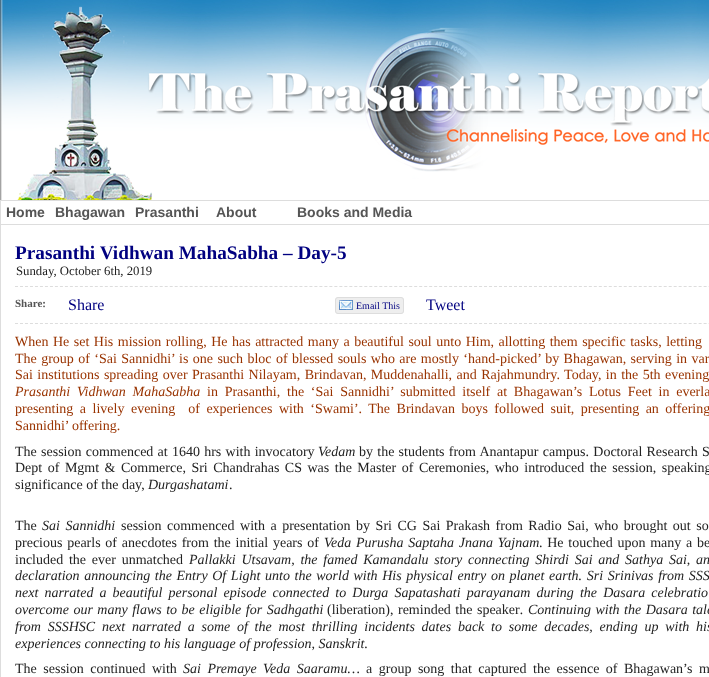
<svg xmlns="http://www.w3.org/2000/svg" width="709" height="677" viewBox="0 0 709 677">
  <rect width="100%" height="100%" fill="#ffffff"/>
  <image x="0" y="0" width="709" height="677" href="img1.png"/>
  <image x="0" y="0" width="709" height="200" href="img2.png"/>
  <rect x="0.5" y="200.5" width="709" height="24" fill="none" stroke="#dddddd"/>
  <text x="6" y="217" font-family="Liberation Sans" font-size="14" font-weight="bold" fill="#555555">Home</text>
  <text x="55" y="217" font-family="Liberation Sans" font-size="14" font-weight="bold" fill="#555555">Bhagawan</text>
  <text x="135" y="217" font-family="Liberation Sans" font-size="14" font-weight="bold" fill="#555555">Prasanthi</text>
  <text x="216" y="217" font-family="Liberation Sans" font-size="14" font-weight="bold" fill="#555555">About</text>
  <text x="297" y="217" font-family="Liberation Sans" font-size="14" font-weight="bold" fill="#555555">Books and Media</text>
  <rect x="0" y="225" width="1" height="452" fill="#dddddd"/>
  <text x="15" y="259" font-family="Liberation Serif" font-size="19.25" font-weight="bold" fill="#000080">Prasanthi Vidhwan MahaSabha – Day-5</text>
  <text x="16" y="275" font-family="Liberation Serif" font-size="12.75" fill="#222222">Sunday, October 6th, 2019</text>
  <path d="M15 286.5H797" fill="none" stroke="#dddddd" stroke-dasharray="3 1.99"/>
  <path d="M15 323.5H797" fill="none" stroke="#dddddd" stroke-dasharray="3 1.99"/>
  <text x="15" y="307" font-family="Liberation Serif" font-size="11" font-weight="bold" fill="#555555">Share:</text>
  <text x="68" y="310" font-family="Liberation Serif" font-size="16" fill="#000080">Share</text>
  <rect x="335" y="297" width="69" height="17" rx="3" fill="#eeeeee"/>
  <image x="339" y="300" width="14" height="10" href="img3.png"/>
  <rect x="335.5" y="297.5" width="68" height="16" rx="2.5" fill="none" stroke="#dddddd"/>
  <text x="356" y="309" font-family="Liberation Serif" font-size="10" fill="#000080">Email This</text>
  <text x="426" y="310" font-family="Liberation Serif" font-size="16" fill="#000080">Tweet</text>
  <text x="15" y="346" word-spacing="1" font-family="Liberation Serif" font-size="14" fill="#993300">When He set His mission rolling, He has attracted many a beautiful soul unto Him, allotting them specific tasks, letting</text>
  <text x="15" y="363" word-spacing="0.9" font-family="Liberation Serif" font-size="14" fill="#993300">The group of ‘Sai Sannidhi’ is one such bloc of blessed souls who are mostly ‘hand-picked’ by Bhagawan, serving in var</text>
  <text x="15" y="379" word-spacing="0.9" font-family="Liberation Serif" font-size="14" fill="#993300">Sai institutions spreading over Prasanthi Nilayam, Brindavan, Muddenahalli, and Rajahmundry. Today, in the 5th evening</text>
  <text x="15" y="396" word-spacing="3.25" font-family="Liberation Serif" font-size="14" font-style="italic" fill="#993300">Prasanthi Vidhwan MahaSabha</text>
  <text x="207" y="396" word-spacing="3.25" font-family="Liberation Serif" font-size="14" fill="#993300">in Prasanthi, the ‘Sai Sannidhi’ submitted itself at Bhagawan’s Lotus Feet in everla</text>
  <text x="15" y="413" word-spacing="3" font-family="Liberation Serif" font-size="14" fill="#993300" xml:space="preserve">presenting a lively evening  of experiences with ‘Swami’. The Brindavan boys followed suit, presenting an offering</text>
  <text x="15" y="430" font-family="Liberation Serif" font-size="14" fill="#993300">Sannidhi’ offering.</text>
  <text x="15" y="456" word-spacing="0.75" font-family="Liberation Serif" font-size="14" fill="#222222">The session commenced at 1640 hrs with invocatory</text>
  <text x="318" y="456" font-family="Liberation Serif" font-size="14" font-style="italic" fill="#222222">Vedam</text>
  <text x="359" y="456" word-spacing="0.75" font-family="Liberation Serif" font-size="14" fill="#222222">by the students from Anantapur campus. Doctoral Research S</text>
  <text x="15" y="472" word-spacing="2" font-family="Liberation Serif" font-size="14" fill="#222222">Dept of Mgmt &amp; Commerce, Sri Chandrahas CS was the Master of Ceremonies, who introduced the session, speaking</text>
  <text x="15" y="489" font-family="Liberation Serif" font-size="14" fill="#222222">significance of the day,</text>
  <text x="148" y="489" font-family="Liberation Serif" font-size="14" font-style="italic" fill="#222222">Durgashatami</text>
  <text x="229" y="489" font-family="Liberation Serif" font-size="14" fill="#222222">.</text>
  <text x="15" y="530" font-family="Liberation Serif" font-size="14" fill="#222222">The</text>
  <text x="42" y="530" word-spacing="2" font-family="Liberation Serif" font-size="14" font-style="italic" fill="#222222">Sai Sannidhi</text>
  <text x="121" y="530" word-spacing="2" font-family="Liberation Serif" font-size="14" fill="#222222">session commenced with a presentation by Sri CG Sai Prakash from Radio Sai, who brought out so</text>
  <text x="15" y="547" word-spacing="1.25" font-family="Liberation Serif" font-size="14" fill="#222222">precious pearls of anecdotes from the initial years of</text>
  <text x="324" y="547" word-spacing="1.25" font-family="Liberation Serif" font-size="14" font-style="italic" fill="#222222">Veda Purusha Saptaha Jnana Yajnam</text>
  <text x="539" y="547" word-spacing="1.25" font-family="Liberation Serif" font-size="14" fill="#222222">. He touched upon many a be</text>
  <text x="15" y="564" word-spacing="2.25" font-family="Liberation Serif" font-size="14" fill="#222222">included the ever unmatched</text>
  <text x="189" y="564" word-spacing="2.25" font-family="Liberation Serif" font-size="14" font-style="italic" fill="#222222">Pallakki Utsavam, the famed Kamandalu story connecting Shirdi Sai and Sathya Sai, an</text>
  <text x="15" y="580" word-spacing="1.1" font-family="Liberation Serif" font-size="14" font-style="italic" fill="#222222">declaration announcing the Entry Of Light unto the world with His physical entry on planet earth. Sri Srinivas from SSS</text>
  <text x="15" y="597" word-spacing="2.6" font-family="Liberation Serif" font-size="14" font-style="italic" fill="#222222">next narrated a beautiful personal episode connected to Durga Sapatashati parayanam during the Dasara celebratio</text>
  <text x="15" y="614" word-spacing="1" font-family="Liberation Serif" font-size="14" font-style="italic" fill="#222222">overcome our many flaws to be eligible for Sadhgathi</text>
  <text x="327" y="614" word-spacing="1" font-family="Liberation Serif" font-size="14" fill="#222222">(liberation), reminded the speaker</text>
  <text x="520" y="614" word-spacing="1" font-family="Liberation Serif" font-size="14" font-style="italic" fill="#222222">. Continuing with the Dasara tale</text>
  <text x="15" y="631" word-spacing="3.25" font-family="Liberation Serif" font-size="14" font-style="italic" fill="#222222">from SSSHSC next narrated a some of the most thrilling incidents dates back to some decades, ending up with his</text>
  <text x="15" y="648" font-family="Liberation Serif" font-size="14" font-style="italic" fill="#222222">experiences connecting to his language of profession, Sanskrit.</text>
  <text x="15" y="673" word-spacing="3" font-family="Liberation Serif" font-size="14" fill="#222222">The session continued with</text>
  <text x="183" y="673" word-spacing="3" font-family="Liberation Serif" font-size="14" font-style="italic" fill="#222222">Sai Premaye Veda Saaramu…</text>
  <text x="366" y="673" word-spacing="3" font-family="Liberation Serif" font-size="14" fill="#222222">a group song that captured the essence of Bhagawan’s m</text>
</svg>
